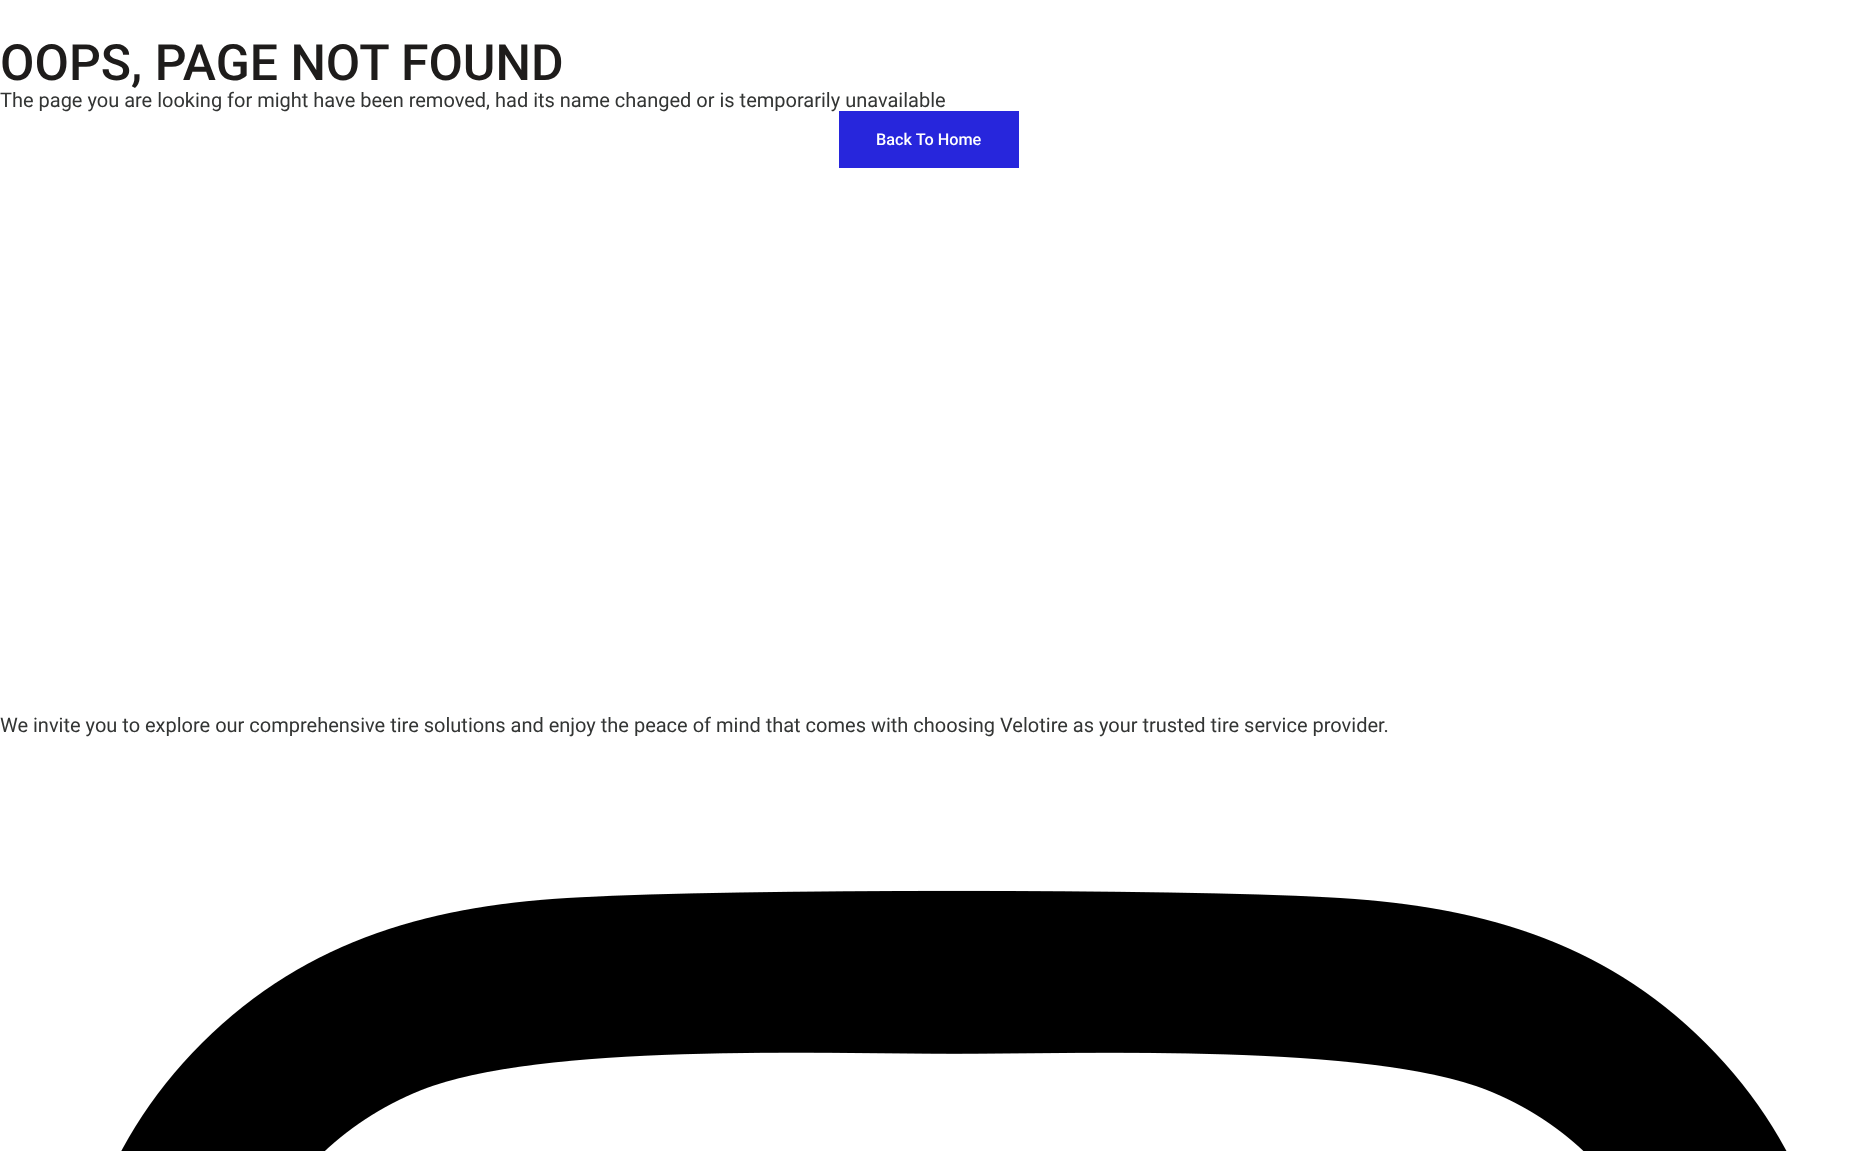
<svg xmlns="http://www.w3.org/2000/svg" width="1857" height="1151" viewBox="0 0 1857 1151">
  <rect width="100%" height="100%" fill="#ffffff"/>
  <text x="0" y="80" font-family="Roboto" font-size="50" font-weight="500" fill="#1e1c1b">OOPS, PAGE NOT FOUND</text>
  <text x="0" y="107" font-family="Roboto" font-size="20" fill="#333534">The page you are looking for might have been removed, had its name changed or is temporarily unavailable</text>
  <rect x="839" y="111" width="180" height="57" fill="#2726dc"/>
  <text x="876" y="145" font-family="Roboto" font-size="16.25" font-weight="500" fill="#ffffff">Back To Home</text>
  <text x="0" y="732" font-family="Roboto" font-size="20" fill="#333534">We invite you to explore our comprehensive tire solutions and enjoy the peace of mind that comes with choosing Velotire as your trusted tire service provider.</text>
  <image x="121" y="890" width="1666" height="261" href="img1.png"/>
</svg>
